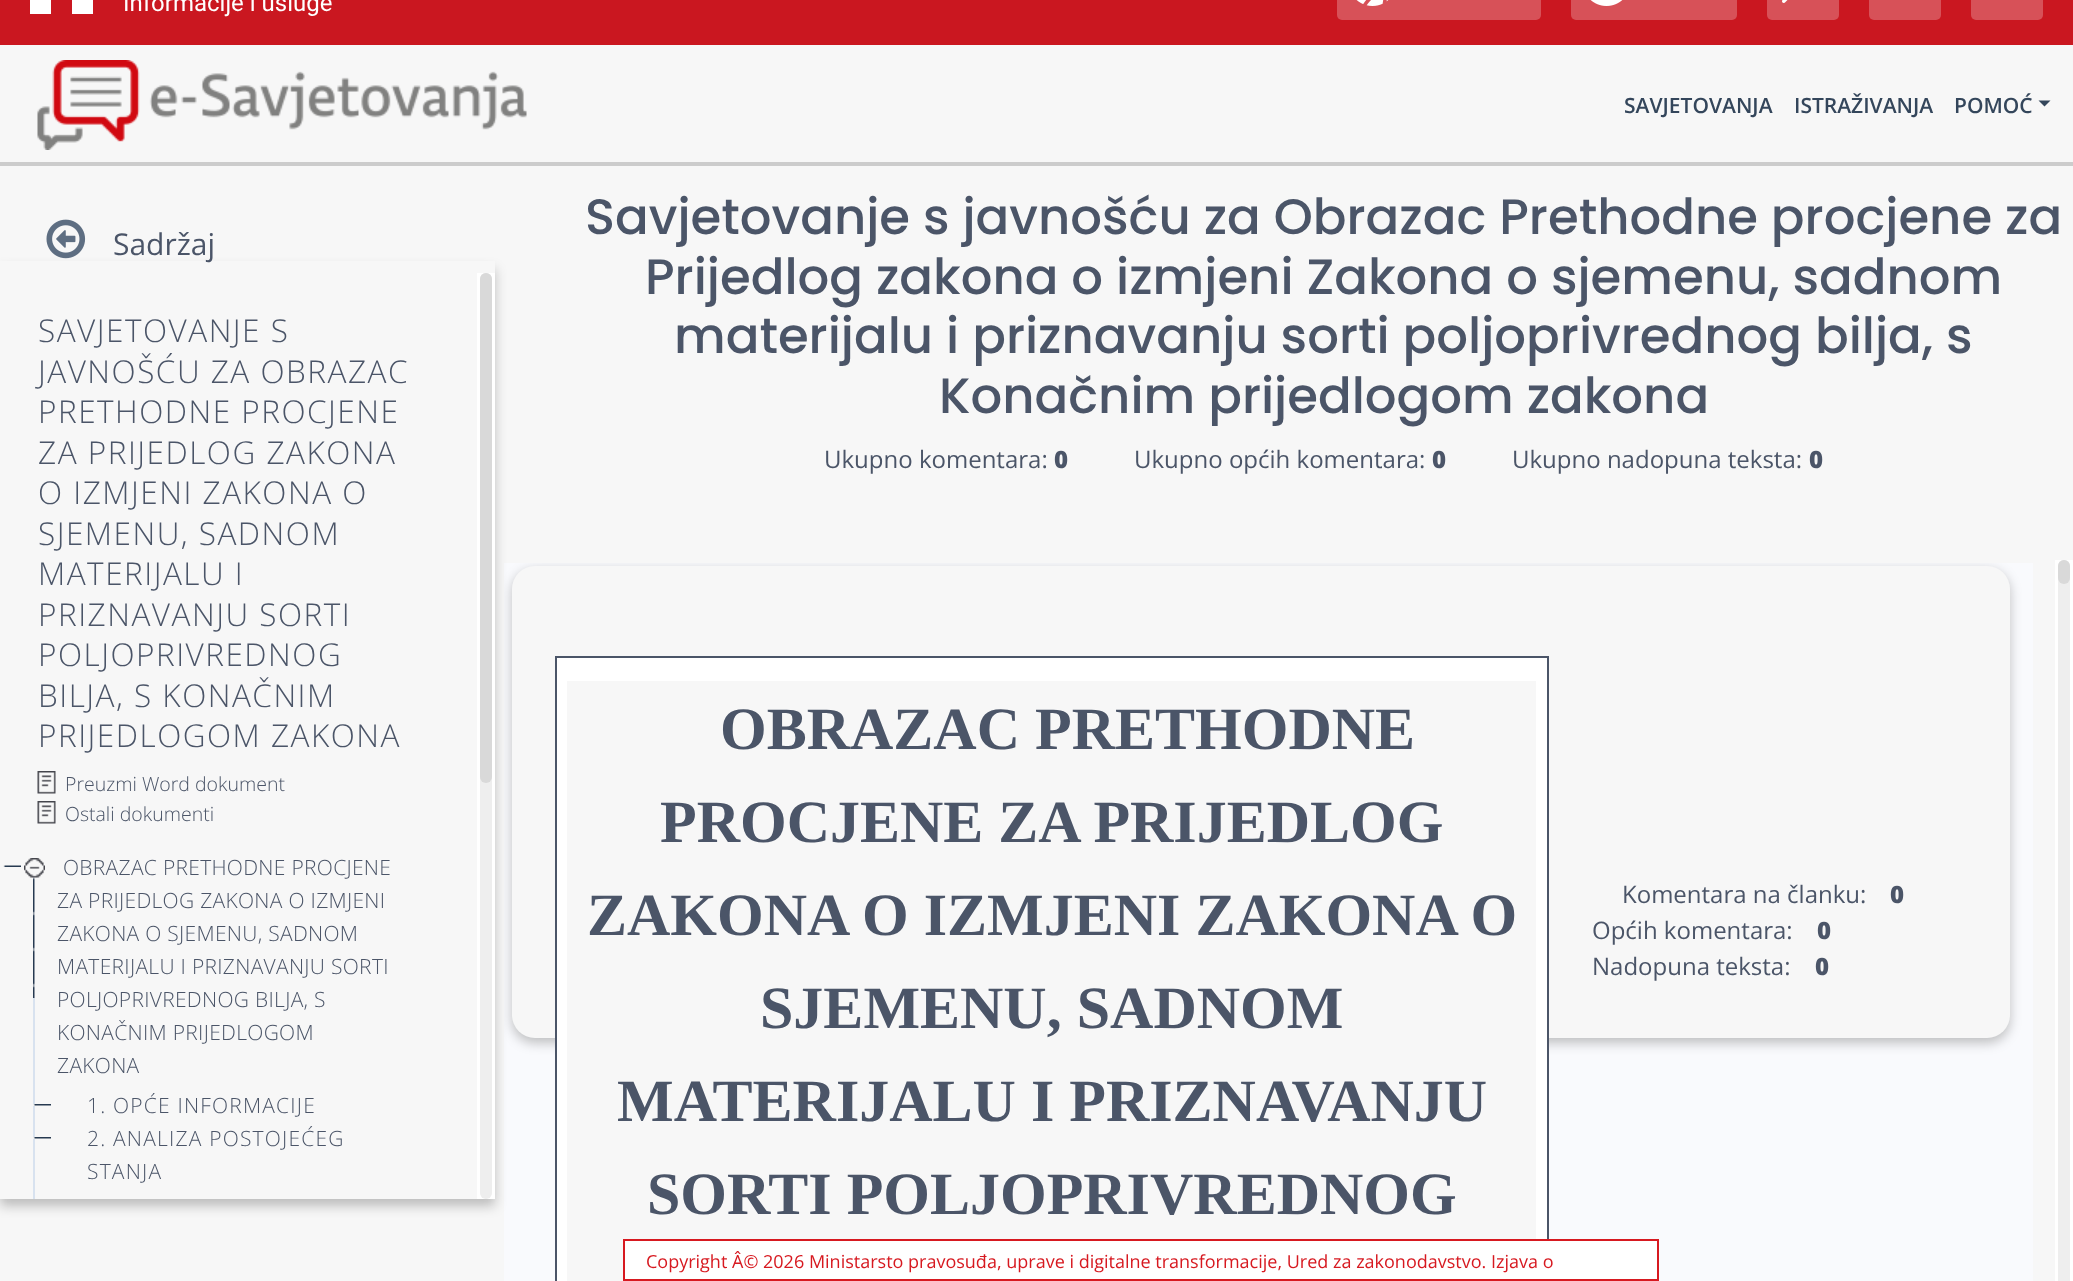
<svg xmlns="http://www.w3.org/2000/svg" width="2073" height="1281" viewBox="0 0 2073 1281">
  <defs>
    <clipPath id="clip1"><rect x="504" y="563" width="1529" height="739"/></clipPath>
    <filter id="blur1" x="-50%" y="-200%" width="200%" height="500%"><feGaussianBlur stdDeviation="6"/></filter>
  </defs>
  <rect width="100%" height="100%" fill="#f7f7f7"/>
  <rect x="0" y="162" width="2073" height="4" fill="#cccccc"/>
  <rect x="0" y="0" width="2073" height="45" fill="#ca1720"/>
  <rect x="30" y="0" width="21" height="14" fill="#ffffff"/>
  <rect x="72" y="0" width="21" height="14" fill="#ffffff"/>
  <text x="123" y="11" font-family="Roboto" font-size="24" fill="#ffffff">Informacije i usluge</text>
  <rect x="1337" y="-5" width="204" height="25" rx="5" fill="#d75158"/>
  <image x="1356" y="0" width="33" height="6" href="img1.png"/>
  <rect x="1571" y="-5" width="166" height="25" rx="5" fill="#d75158"/>
  <image x="1590" y="0" width="33" height="6" href="img2.png"/>
  <rect x="1767" y="-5" width="72" height="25" rx="5" fill="#d75158"/>
  <image x="1782" y="0" width="6" height="3" href="img3.png"/>
  <rect x="1869" y="-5" width="72" height="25" rx="5" fill="#d75158"/>
  <rect x="1971" y="-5" width="72" height="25" rx="5" fill="#d75158"/>
  <image x="37" y="60" width="490" height="90" href="img4.png"/>
  <text x="1624" y="113" font-family="Open Sans" font-size="21" font-weight="600" fill="#34465b">SAVJETOVANJA</text>
  <text x="1794" y="113" font-family="Open Sans" font-size="21" font-weight="600" fill="#34465b">ISTRAŽIVANJA</text>
  <text x="1954" y="113" font-family="Open Sans" font-size="21" font-weight="600" fill="#34465b">POMOĆ</text>
  <path d="M2038.5 100.5H2050.5L2044.5 106.5Z" fill="#34465b"/>
  <rect x="504" y="563" width="1529" height="718" fill="#f9fafd"/>
  <g clip-path="url(#clip1)">
    <rect x="512" y="570" width="1498" height="473" rx="23" fill="#000000" fill-opacity="0.24" filter="url(#blur1)"/>
  </g>
  <rect x="512" y="566" width="1498" height="472" rx="23" fill="#f7f7f7"/>
  <rect x="0" y="269" width="495" height="937" fill="#000000" fill-opacity="0.24" filter="url(#blur1)"/>
  <image x="46" y="219" width="40" height="40" href="img5.png"/>
  <rect x="0" y="261" width="495" height="938" fill="#f7f7f7"/>
  <text x="113" y="255" font-family="Open Sans" font-size="30" fill="#4b5568">Sadržaj</text>
  <text x="38" y="342" font-family="Open Sans" font-size="31.5" font-weight="300" letter-spacing="1.5" fill="#4b5568">SAVJETOVANJE S</text>
  <text x="38" y="383" font-family="Open Sans" font-size="31.5" font-weight="300" letter-spacing="1.5" fill="#4b5568">JAVNOŠĆU ZA OBRAZAC</text>
  <text x="38" y="423" font-family="Open Sans" font-size="31.5" font-weight="300" letter-spacing="1.5" fill="#4b5568">PRETHODNE PROCJENE</text>
  <text x="38" y="464" font-family="Open Sans" font-size="31.5" font-weight="300" letter-spacing="1.5" fill="#4b5568">ZA PRIJEDLOG ZAKONA</text>
  <text x="38" y="504" font-family="Open Sans" font-size="31.5" font-weight="300" letter-spacing="1.5" fill="#4b5568">O IZMJENI ZAKONA O</text>
  <text x="38" y="545" font-family="Open Sans" font-size="31.5" font-weight="300" letter-spacing="1.5" fill="#4b5568">SJEMENU, SADNOM</text>
  <text x="38" y="585" font-family="Open Sans" font-size="31.5" font-weight="300" letter-spacing="1.5" fill="#4b5568">MATERIJALU I</text>
  <text x="38" y="626" font-family="Open Sans" font-size="31.5" font-weight="300" letter-spacing="1.5" fill="#4b5568">PRIZNAVANJU SORTI</text>
  <text x="38" y="666" font-family="Open Sans" font-size="31.5" font-weight="300" letter-spacing="1.5" fill="#4b5568">POLJOPRIVREDNOG</text>
  <text x="38" y="707" font-family="Open Sans" font-size="31.5" font-weight="300" letter-spacing="1.5" fill="#4b5568">BILJA, S KONAČNIM</text>
  <text x="38" y="747" font-family="Open Sans" font-size="31.5" font-weight="300" letter-spacing="1.5" fill="#4b5568">PRIJEDLOGOM ZAKONA</text>
  <image x="37" y="771" width="19" height="23" href="img6.png"/>
  <text x="65" y="791" font-family="Open Sans" font-size="19.5" font-weight="300" fill="#4b5568">Preuzmi Word dokument</text>
  <image x="37" y="801" width="19" height="23" href="img6.png"/>
  <text x="65" y="821" font-family="Open Sans" font-size="19.5" font-weight="300" fill="#4b5568">Ostali dokumenti</text>
  <image x="3" y="865" width="18" height="2" href="img7.png"/>
  <image x="33" y="877" width="2" height="121" href="img9.png"/>
  <image x="24" y="858" width="21" height="20" href="img8.png"/>
  <text x="63" y="875" font-family="Open Sans" font-size="21" font-weight="300" letter-spacing="0.3" fill="#4b5568">OBRAZAC PRETHODNE PROCJENE</text>
  <text x="57" y="908" font-family="Open Sans" font-size="21" font-weight="300" letter-spacing="0.3" fill="#4b5568">ZA PRIJEDLOG ZAKONA O IZMJENI</text>
  <text x="57" y="941" font-family="Open Sans" font-size="21" font-weight="300" letter-spacing="0.3" fill="#4b5568">ZAKONA O SJEMENU, SADNOM</text>
  <text x="57" y="974" font-family="Open Sans" font-size="21" font-weight="300" letter-spacing="0.3" fill="#4b5568">MATERIJALU I PRIZNAVANJU SORTI</text>
  <text x="57" y="1007" font-family="Open Sans" font-size="21" font-weight="300" letter-spacing="0.3" fill="#4b5568">POLJOPRIVREDNOG BILJA, S</text>
  <text x="57" y="1040" font-family="Open Sans" font-size="21" font-weight="300" letter-spacing="0.3" fill="#4b5568">KONAČNIM PRIJEDLOGOM</text>
  <text x="57" y="1073" font-family="Open Sans" font-size="21" font-weight="300" letter-spacing="0.3" fill="#4b5568">ZAKONA</text>
  <rect x="33" y="998" width="2" height="201" fill="#d8e2ef"/>
  <rect x="33" y="1104" width="2" height="2" fill="#f7f7f7"/>
  <image x="33" y="1104" width="18" height="2" href="img10.png"/>
  <text x="87" y="1113" font-family="Open Sans" font-size="21" font-weight="300" letter-spacing="1.2" fill="#4b5568">1. OPĆE INFORMACIJE</text>
  <rect x="33" y="1137" width="2" height="2" fill="#f7f7f7"/>
  <image x="33" y="1137" width="18" height="2" href="img10.png"/>
  <text x="87" y="1146" font-family="Open Sans" font-size="21" font-weight="300" letter-spacing="1.2" fill="#4b5568">2. ANALIZA POSTOJEĆEG</text>
  <text x="87" y="1179" font-family="Open Sans" font-size="21" font-weight="300" letter-spacing="1.2" fill="#4b5568">STANJA</text>
  <rect x="477" y="273" width="18" height="926" fill="#ffffff"/>
  <rect x="480" y="273" width="12" height="926" rx="6" fill="#eeeeee"/>
  <rect x="480" y="273" width="12" height="510" rx="6" fill="#d9d9d9"/>
  <text x="585" y="234" font-family="Poppins" font-size="49.75" font-weight="500" fill="#4b5568">Savjetovanje s javnošću za Obrazac Prethodne procjene za</text>
  <text x="645" y="294" font-family="Poppins" font-size="49.75" font-weight="500" fill="#4b5568">Prijedlog zakona o izmjeni Zakona o sjemenu, sadnom</text>
  <text x="674" y="353" font-family="Poppins" font-size="49.75" font-weight="500" fill="#4b5568">materijalu i priznavanju sorti poljoprivrednog bilja, s</text>
  <text x="939" y="413" font-family="Poppins" font-size="49.75" font-weight="500" fill="#4b5568">Konačnim prijedlogom zakona</text>
  <text x="824" y="468" font-family="Open Sans" font-size="24" fill="#4b5568">Ukupno komentara:</text>
  <text x="1054" y="468" font-family="Open Sans" font-size="24" font-weight="800" fill="#4b5568">0</text>
  <text x="1134" y="468" font-family="Open Sans" font-size="24" fill="#4b5568">Ukupno općih komentara:</text>
  <text x="1432" y="468" font-family="Open Sans" font-size="24" font-weight="800" fill="#4b5568">0</text>
  <text x="1512" y="468" font-family="Open Sans" font-size="24" fill="#4b5568">Ukupno nadopuna teksta:</text>
  <text x="1809" y="468" font-family="Open Sans" font-size="24" font-weight="800" fill="#4b5568">0</text>
  <rect x="557" y="658" width="990" height="623" fill="#ffffff"/>
  <rect x="555" y="656" width="993" height="2" fill="#4b5568"/>
  <rect x="1547" y="656" width="2" height="583" fill="#4b5568"/>
  <rect x="555" y="656" width="2" height="625" fill="#4b5568"/>
  <rect x="567" y="681" width="969" height="600" fill="#f7f7f7"/>
  <text x="720" y="749" font-family="Liberation Serif" font-size="60" font-weight="bold" fill="#4b5568">OBRAZAC PRETHODNE</text>
  <text x="660" y="842" font-family="Liberation Serif" font-size="60" font-weight="bold" fill="#4b5568">PROCJENE ZA PRIJEDLOG</text>
  <text x="587" y="935" font-family="Liberation Serif" font-size="60" font-weight="bold" fill="#4b5568">ZAKONA O IZMJENI ZAKONA O</text>
  <text x="760" y="1028" font-family="Liberation Serif" font-size="60" font-weight="bold" fill="#4b5568">SJEMENU, SADNOM</text>
  <text x="617" y="1121" font-family="Liberation Serif" font-size="60" font-weight="bold" fill="#4b5568">MATERIJALU I PRIZNAVANJU</text>
  <text x="647" y="1214" font-family="Liberation Serif" font-size="60" font-weight="bold" fill="#4b5568">SORTI POLJOPRIVREDNOG</text>
  <text x="1622" y="903" font-family="Open Sans" font-size="24" fill="#4b5568">Komentara na članku:</text>
  <text x="1890" y="903" font-family="Open Sans" font-size="24" font-weight="800" fill="#4b5568">0</text>
  <text x="1592" y="939" font-family="Open Sans" font-size="24" fill="#4b5568">Općih komentara:</text>
  <text x="1817" y="939" font-family="Open Sans" font-size="24" font-weight="800" fill="#4b5568">0</text>
  <text x="1592" y="975" font-family="Open Sans" font-size="24" fill="#4b5568">Nadopuna teksta:</text>
  <text x="1815" y="975" font-family="Open Sans" font-size="24" font-weight="800" fill="#4b5568">0</text>
  <rect x="2055" y="560" width="18" height="721" fill="#ffffff"/>
  <rect x="2058" y="560" width="12" height="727" rx="6" fill="#eeeeee"/>
  <rect x="2058" y="560" width="12" height="24" rx="6" fill="#d9d9d9"/>
  <rect x="624" y="1240" width="1034" height="40" fill="#ffffff" stroke="#d71920" stroke-width="2"/>
  <text x="646" y="1268" font-family="Open Sans" font-size="18" fill="#d71920">Copyright Â© 2026 Ministarsto pravosuđa, uprave i digitalne transformacije, Ured za zakonodavstvo. Izjava o</text>
</svg>
